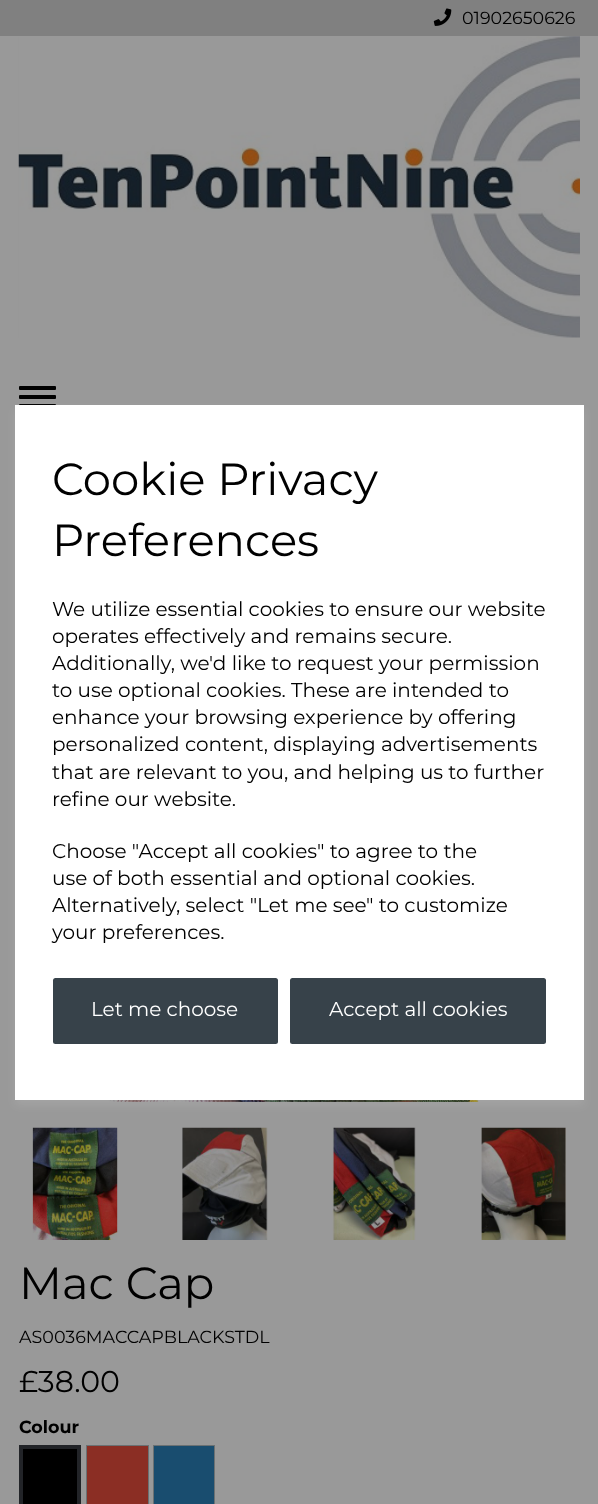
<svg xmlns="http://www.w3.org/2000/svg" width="598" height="1504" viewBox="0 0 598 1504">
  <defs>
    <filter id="blur1" x="-50%" y="-200%" width="200%" height="500%"><feGaussianBlur stdDeviation="5"/></filter>
  </defs>
  <rect width="100%" height="100%" fill="#999999"/>
  <rect x="0" y="0" width="598" height="36" fill="#808080"/>
  <image x="433" y="8" width="19" height="18" href="img1.png"/>
  <text x="462" y="24" font-family="Montserrat" font-size="17.5" fill="#000000">01902650626</text>
  <image x="18" y="36" width="562" height="302" href="img2.png"/>
  <rect x="19" y="386" width="37" height="4" rx="1" fill="#000000"/>
  <rect x="19" y="395" width="37" height="4" rx="1" fill="#000000"/>
  <rect x="19" y="404" width="37" height="4" rx="1" fill="#000000"/>
  <image x="88" y="1100" width="422" height="2" href="img3.png"/>
  <rect x="15" y="410" width="569" height="695" fill="#ffffff" fill-opacity="0.1" filter="url(#blur1)"/>
  <rect x="15" y="405" width="569" height="695" fill="#ffffff"/>
  <text x="52" y="495" font-family="Montserrat" font-size="45" fill="#000000">Cookie Privacy</text>
  <text x="52" y="556" font-family="Montserrat" font-size="45" fill="#000000">Preferences</text>
  <text x="52" y="616" font-family="Montserrat" font-size="20" fill="#000000">We utilize essential cookies to ensure our website</text>
  <text x="52" y="643" font-family="Montserrat" font-size="20" fill="#000000">operates effectively and remains secure.</text>
  <text x="52" y="670" font-family="Montserrat" font-size="20" fill="#000000">Additionally, we'd like to request your permission</text>
  <text x="52" y="697" font-family="Montserrat" font-size="20" fill="#000000">to use optional cookies. These are intended to</text>
  <text x="52" y="724" font-family="Montserrat" font-size="20" fill="#000000">enhance your browsing experience by offering</text>
  <text x="52" y="751" font-family="Montserrat" font-size="20" fill="#000000">personalized content, displaying advertisements</text>
  <text x="52" y="779" font-family="Montserrat" font-size="20" fill="#000000">that are relevant to you, and helping us to further</text>
  <text x="52" y="806" font-family="Montserrat" font-size="20" fill="#000000">refine our website.</text>
  <text x="52" y="858" font-family="Montserrat" font-size="20" fill="#000000">Choose "Accept all cookies" to agree to the</text>
  <text x="52" y="885" font-family="Montserrat" font-size="20" fill="#000000">use of both essential and optional cookies.</text>
  <text x="52" y="912" font-family="Montserrat" font-size="20" fill="#000000">Alternatively, select "Let me see" to customize</text>
  <text x="52" y="939" font-family="Montserrat" font-size="20" fill="#000000">your preferences.</text>
  <rect x="53" y="978" width="225" height="66" rx="2.5" fill="#37424a"/>
  <text x="91" y="1016" font-family="Montserrat" font-size="20" fill="#ffffff">Let me choose</text>
  <rect x="290" y="978" width="256" height="66" rx="2.5" fill="#37424a"/>
  <text x="329" y="1016" font-family="Montserrat" font-size="20" fill="#ffffff">Accept all cookies</text>
  <image x="32" y="1127" width="86" height="113" href="img4.png"/>
  <image x="182" y="1127" width="86" height="113" href="img5.png"/>
  <image x="332" y="1127" width="84" height="113" href="img6.png"/>
  <image x="481" y="1127" width="85" height="113" href="img7.png"/>
  <text x="19" y="1299" font-family="Montserrat" font-size="45" fill="#000000">Mac Cap</text>
  <text x="19" y="1343" font-family="Montserrat" font-size="17.5" fill="#000000">AS0036MACCAPBLACKSTDL</text>
  <text x="19" y="1392" font-family="Montserrat" font-size="30" fill="#000000">£38.00</text>
  <text x="19" y="1433" font-family="Montserrat" font-size="17.5" font-weight="bold" fill="#000000">Colour</text>
  <rect x="21" y="1447" width="58" height="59" fill="#000000" stroke="#222428" stroke-width="4"/>
  <rect x="86.5" y="1445.5" width="62" height="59" fill="#8b2e24" stroke="#6b7173"/>
  <rect x="153.5" y="1445.5" width="61" height="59" fill="#194d6f" stroke="#6b7173"/>
</svg>
